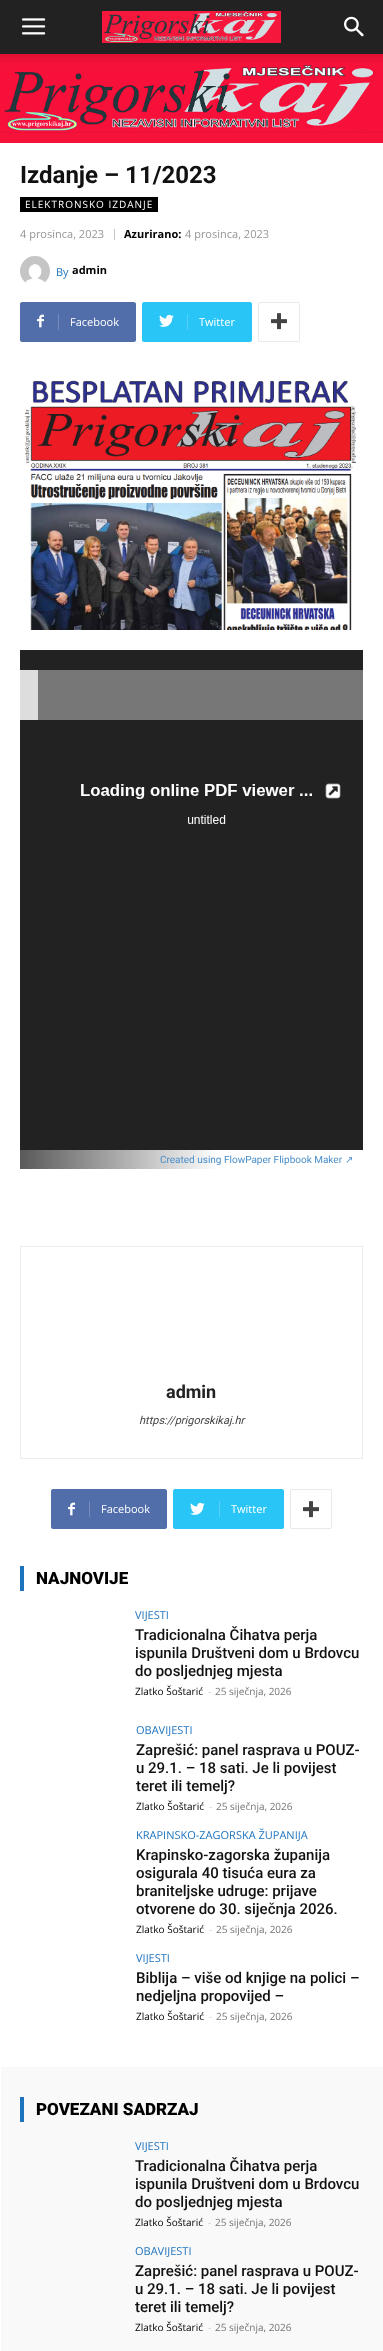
<svg xmlns="http://www.w3.org/2000/svg" width="383" height="2351" viewBox="0 0 383 2351">
  <defs>
    <linearGradient id="g1" gradientUnits="userSpaceOnUse" x1="20" y1="1160" x2="363" y2="1160"><stop offset="0" stop-color="#595959"/><stop offset="0.58" stop-color="#ffffff"/></linearGradient>
  </defs>
  <rect width="100%" height="100%" fill="#ffffff"/>
  <rect x="0" y="0" width="383" height="54" fill="#222222"/>
  <image x="22" y="18" width="24" height="17" href="img1.png"/>
  <image x="102" y="11" width="179" height="32" href="img2.png"/>
  <image x="344" y="16" width="20" height="21" href="img3.png"/>
  <rect x="0" y="54" width="383" height="89" fill="#f7123a"/>
  <image x="0" y="54" width="383" height="9" href="img4.png"/>
  <image x="0" y="65" width="383" height="68" href="img5.png"/>
  <text x="20" y="183" font-family="Roboto" font-size="24" font-weight="bold" fill="#111111">Izdanje – 11/2023</text>
  <rect x="20" y="197" width="138" height="15" fill="#000000"/>
  <text x="25" y="208" font-family="Open Sans" font-size="10" letter-spacing="1" fill="#ffffff">ELEKTRONSKO IZDANJE</text>
  <text x="20" y="238" font-family="Open Sans" font-size="11" fill="#969696">4 prosinca, 2023</text>
  <rect x="114" y="229" width="1" height="11" fill="#c4c4c4"/>
  <text x="124" y="238" font-family="Open Sans" font-size="11" font-weight="bold" fill="#000000">Azurirano:</text>
  <text x="185" y="238" font-family="Open Sans" font-size="11" fill="#969696">4 prosinca, 2023</text>
  <image x="20" y="256" width="30" height="27" href="img6.png"/>
  <text x="56" y="276" font-family="Open Sans" font-size="11" fill="#1e73be">By</text>
  <text x="72" y="274" font-family="Open Sans" font-size="11" font-weight="bold" fill="#000000">admin</text>
  <path d="M58 302H134C135 302 136 303 136 304V340C136 341 135 342 134 342H58Z" fill="#516eab"/>
  <path d="M22 302H61V342H22C21 342 20 341 20 340V304C20 303 21 302 22 302Z" fill="#516eab"/>
  <image x="37" y="314" width="7" height="14" href="img7.png"/>
  <rect x="58" y="314" width="1" height="16" fill="#748bbc"/>
  <text x="70" y="326" font-family="Open Sans" font-size="11" fill="#ffffff">Facebook</text>
  <path d="M187 302H250C251 302 252 303 252 304V340C252 341 251 342 250 342H187Z" fill="#29c5f6"/>
  <path d="M144 302H191V342H144C143 342 142 341 142 340V304C142 303 143 302 144 302Z" fill="#29c5f6"/>
  <image x="159" y="314" width="15" height="13" href="img8.png"/>
  <rect x="187" y="314" width="1" height="16" fill="#54d1f8"/>
  <text x="199" y="326" font-family="Open Sans" font-size="11" fill="#ffffff">Twitter</text>
  <rect x="258.5" y="302.5" width="41" height="39" rx="1.5" fill="none" stroke="#e9e9e9"/>
  <image x="271" y="313" width="16" height="17" href="img9.png"/>
  <image x="24" y="380" width="332" height="250" href="img10.png"/>
  <image x="20" y="650" width="343" height="500" href="img11.png"/>
  <rect x="20" y="1150" width="196" height="19" fill="url(#g1)"/>
  <text x="160" y="1163" font-family="Roboto" font-size="10" fill="#498dc9">Created using FlowPaper Flipbook Maker</text>
  <text x="345" y="1163" font-family="DejaVu Sans" font-size="10" fill="#498dc9">↗</text>
  <rect x="20.5" y="1246.5" width="342" height="212" fill="none" stroke="#ededed"/>
  <text x="166" y="1398" font-family="Roboto" font-size="18" font-weight="bold" fill="#222222">admin</text>
  <text x="139" y="1424" font-family="Roboto" font-size="11" font-style="italic" fill="#444444">https://prigorskikaj.hr</text>
  <path d="M89 1489H165C166 1489 167 1490 167 1491V1527C167 1528 166 1529 165 1529H89Z" fill="#516eab"/>
  <path d="M53 1489H92V1529H53C52 1529 51 1528 51 1527V1491C51 1490 52 1489 53 1489Z" fill="#516eab"/>
  <image x="68" y="1502" width="7" height="14" href="img7.png"/>
  <rect x="89" y="1501" width="1" height="16" fill="#748bbc"/>
  <text x="101" y="1513" font-family="Open Sans" font-size="11" fill="#ffffff">Facebook</text>
  <path d="M219 1489H282C283 1489 284 1490 284 1491V1527C284 1528 283 1529 282 1529H219Z" fill="#29c5f6"/>
  <path d="M175 1489H222V1529H175C174 1529 173 1528 173 1527V1491C173 1490 174 1489 175 1489Z" fill="#29c5f6"/>
  <image x="190" y="1502" width="15" height="13" href="img8.png"/>
  <rect x="219" y="1501" width="1" height="16" fill="#54d1f8"/>
  <text x="231" y="1513" font-family="Open Sans" font-size="11" fill="#ffffff">Twitter</text>
  <rect x="290.5" y="1489.5" width="41" height="39" rx="1.5" fill="none" stroke="#e9e9e9"/>
  <image x="303" y="1501" width="16" height="17" href="img9.png"/>
  <rect x="20" y="1566" width="4" height="25" fill="#1e73be"/>
  <text x="36" y="1584" font-family="Roboto" font-size="17" font-weight="900" fill="#000000">NAJNOVIJE</text>
  <text x="135" y="1619" font-family="Open Sans" font-size="11" fill="#1e73be">VIJESTI</text>
  <text x="135" y="1640" font-family="Roboto" font-size="15" font-weight="500" fill="#111111">Tradicionalna Čihatva perja</text>
  <text x="135" y="1658" font-family="Roboto" font-size="15" font-weight="500" fill="#111111">ispunila Društveni dom u Brdovcu</text>
  <text x="135" y="1676" font-family="Roboto" font-size="15" font-weight="500" fill="#111111">do posljednjeg mjesta</text>
  <text x="135" y="1695" font-family="Open Sans" font-size="10" fill="#000000">Zlatko Šoštarić</text>
  <text x="208" y="1695" font-family="Open Sans" font-size="10" fill="#cccccc">-</text>
  <text x="215" y="1695" font-family="Open Sans" font-size="10" fill="#767676">25 siječnja, 2026</text>
  <text x="136" y="1734" font-family="Open Sans" font-size="11" fill="#1e73be">OBAVIJESTI</text>
  <text x="136" y="1755" font-family="Roboto" font-size="15" font-weight="500" fill="#111111">Zaprešić: panel rasprava u POUZ-</text>
  <text x="136" y="1773" font-family="Roboto" font-size="15" font-weight="500" fill="#111111">u 29.1. – 18 sati. Je li povijest</text>
  <text x="136" y="1791" font-family="Roboto" font-size="15" font-weight="500" fill="#111111">teret ili temelj?</text>
  <text x="136" y="1810" font-family="Open Sans" font-size="10" fill="#000000">Zlatko Šoštarić</text>
  <text x="209" y="1810" font-family="Open Sans" font-size="10" fill="#cccccc">-</text>
  <text x="216" y="1810" font-family="Open Sans" font-size="10" fill="#767676">25 siječnja, 2026</text>
  <text x="136" y="1839" font-family="Open Sans" font-size="11" fill="#1e73be">KRAPINSKO-ZAGORSKA ŽUPANIJA</text>
  <text x="136" y="1860" font-family="Roboto" font-size="15" font-weight="500" fill="#111111">Krapinsko-zagorska županija</text>
  <text x="136" y="1878" font-family="Roboto" font-size="15" font-weight="500" fill="#111111">osigurala 40 tisuća eura za</text>
  <text x="136" y="1896" font-family="Roboto" font-size="15" font-weight="500" fill="#111111">braniteljske udruge: prijave</text>
  <text x="136" y="1914" font-family="Roboto" font-size="15" font-weight="500" fill="#111111">otvorene do 30. siječnja 2026.</text>
  <text x="136" y="1933" font-family="Open Sans" font-size="10" fill="#000000">Zlatko Šoštarić</text>
  <text x="209" y="1933" font-family="Open Sans" font-size="10" fill="#cccccc">-</text>
  <text x="216" y="1933" font-family="Open Sans" font-size="10" fill="#767676">25 siječnja, 2026</text>
  <text x="136" y="1962" font-family="Open Sans" font-size="11" fill="#1e73be">VIJESTI</text>
  <text x="136" y="1983" font-family="Roboto" font-size="15" font-weight="500" fill="#111111">Biblija – više od knjige na polici –</text>
  <text x="136" y="2001" font-family="Roboto" font-size="15" font-weight="500" fill="#111111">nedjeljna propovijed –</text>
  <text x="136" y="2020" font-family="Open Sans" font-size="10" fill="#000000">Zlatko Šoštarić</text>
  <text x="209" y="2020" font-family="Open Sans" font-size="10" fill="#cccccc">-</text>
  <text x="216" y="2020" font-family="Open Sans" font-size="10" fill="#767676">25 siječnja, 2026</text>
  <rect x="1" y="2067" width="382" height="284" fill="#f9f9f9"/>
  <rect x="20" y="2097" width="4" height="25" fill="#1e73be"/>
  <text x="36" y="2115" font-family="Roboto" font-size="17" font-weight="900" fill="#000000">POVEZANI SADRZAJ</text>
  <text x="135" y="2150" font-family="Open Sans" font-size="11" fill="#1e73be">VIJESTI</text>
  <text x="135" y="2171" font-family="Roboto" font-size="15" font-weight="500" fill="#111111">Tradicionalna Čihatva perja</text>
  <text x="135" y="2189" font-family="Roboto" font-size="15" font-weight="500" fill="#111111">ispunila Društveni dom u Brdovcu</text>
  <text x="135" y="2207" font-family="Roboto" font-size="15" font-weight="500" fill="#111111">do posljednjeg mjesta</text>
  <text x="135" y="2226" font-family="Open Sans" font-size="10" fill="#000000">Zlatko Šoštarić</text>
  <text x="208" y="2226" font-family="Open Sans" font-size="10" fill="#cccccc">-</text>
  <text x="215" y="2226" font-family="Open Sans" font-size="10" fill="#767676">25 siječnja, 2026</text>
  <text x="135" y="2255" font-family="Open Sans" font-size="11" fill="#1e73be">OBAVIJESTI</text>
  <text x="135" y="2276" font-family="Roboto" font-size="15" font-weight="500" fill="#111111">Zaprešić: panel rasprava u POUZ-</text>
  <text x="135" y="2294" font-family="Roboto" font-size="15" font-weight="500" fill="#111111">u 29.1. – 18 sati. Je li povijest</text>
  <text x="135" y="2312" font-family="Roboto" font-size="15" font-weight="500" fill="#111111">teret ili temelj?</text>
  <text x="135" y="2331" font-family="Open Sans" font-size="10" fill="#000000">Zlatko Šoštarić</text>
  <text x="208" y="2331" font-family="Open Sans" font-size="10" fill="#cccccc">-</text>
  <text x="215" y="2331" font-family="Open Sans" font-size="10" fill="#767676">25 siječnja, 2026</text>
</svg>
